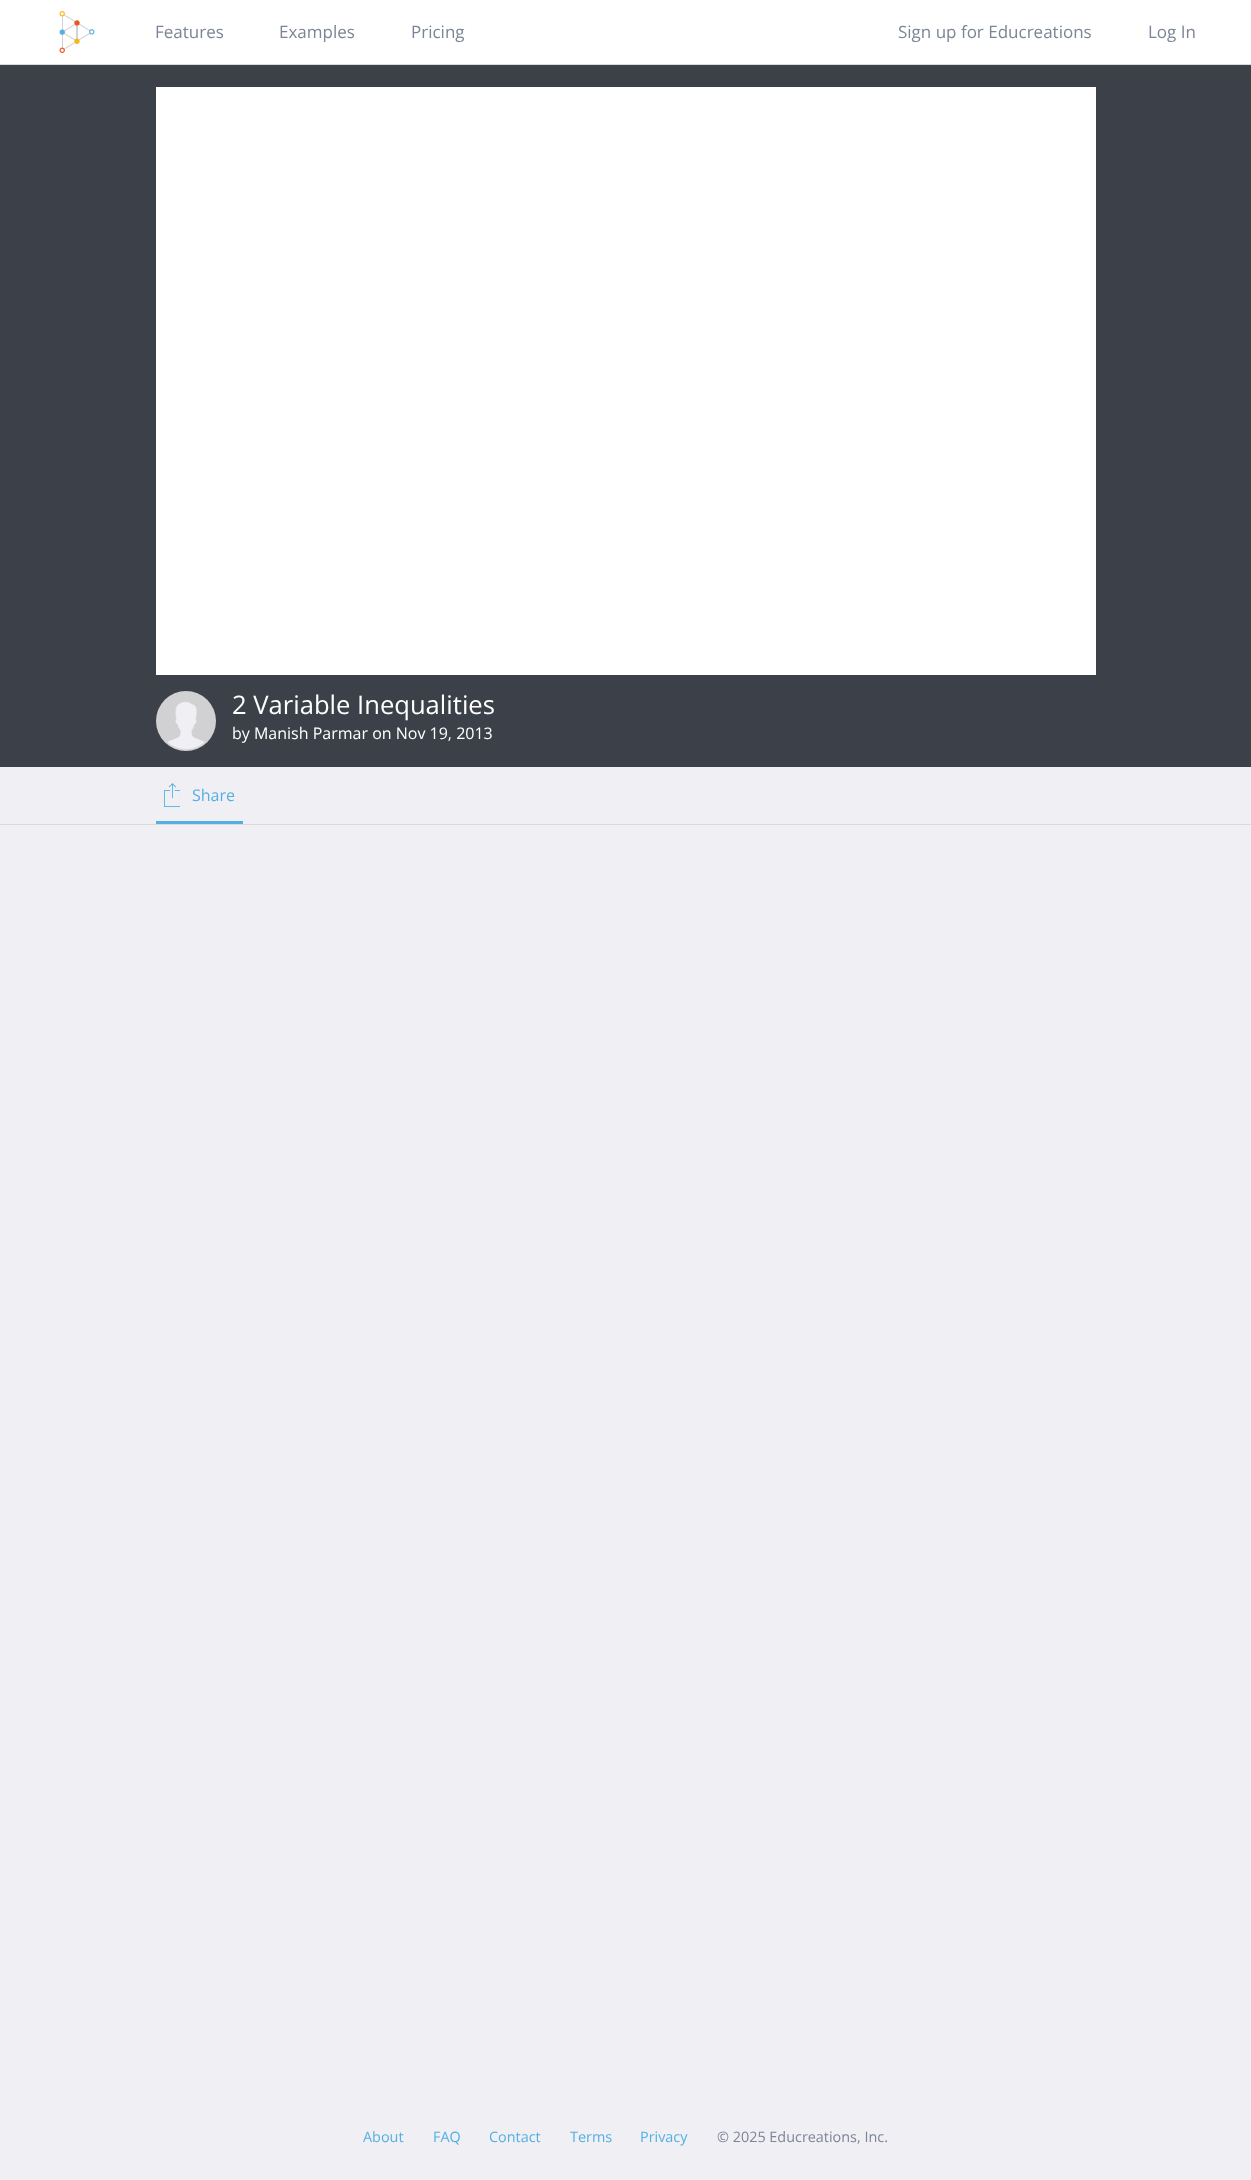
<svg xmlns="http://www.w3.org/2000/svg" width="1251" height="2180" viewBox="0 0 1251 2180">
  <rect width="100%" height="100%" fill="#efeff4"/>
  <rect x="0" y="0" width="1251" height="64" fill="#ffffff"/>
  <rect x="0" y="64" width="1251" height="1" fill="#dbdbde"/>
  <image x="59" y="11" width="36" height="42" href="img1.png"/>
  <text x="155" y="38" font-family="Open Sans" font-size="17" fill="#7c8595">Features</text>
  <text x="279" y="38" font-family="Open Sans" font-size="17" fill="#7c8595">Examples</text>
  <text x="411" y="38" font-family="Open Sans" font-size="17" fill="#7c8595">Pricing</text>
  <text x="898" y="38" font-family="Open Sans" font-size="17" fill="#7c8595">Sign up for Educreations</text>
  <text x="1148" y="38" font-family="Open Sans" font-size="17" fill="#7c8595">Log In</text>
  <rect x="0" y="65" width="1251" height="702" fill="#3c4149"/>
  <rect x="156" y="87" width="940" height="588" fill="#ffffff"/>
  <image x="156" y="691" width="60" height="60" href="img2.png"/>
  <text x="232" y="714" font-family="Open Sans" font-size="25.6" fill="#ffffff">2 Variable Inequalities</text>
  <text x="232" y="739" font-family="Open Sans" font-size="16" fill="#ffffff">by Manish Parmar on Nov 19, 2013</text>
  <rect x="0" y="824" width="1251" height="1" fill="#dbdbde"/>
  <rect x="156" y="821" width="87" height="3" fill="#54b0e3"/>
  <image x="164" y="783" width="16" height="24" href="img3.png"/>
  <text x="192" y="801" font-family="Open Sans" font-size="16" fill="#54b0e3">Share</text>
  <text x="363" y="2142" font-family="Open Sans" font-size="14.4" fill="#54b0e3">About</text>
  <text x="433" y="2142" font-family="Open Sans" font-size="14.4" fill="#54b0e3">FAQ</text>
  <text x="489" y="2142" font-family="Open Sans" font-size="14.4" fill="#54b0e3">Contact</text>
  <text x="570" y="2142" font-family="Open Sans" font-size="14.4" fill="#54b0e3">Terms</text>
  <text x="640" y="2142" font-family="Open Sans" font-size="14.4" fill="#54b0e3">Privacy</text>
  <text x="717" y="2142" font-family="Open Sans" font-size="14.4" fill="#7c8595">© 2025 Educreations, Inc.</text>
</svg>
